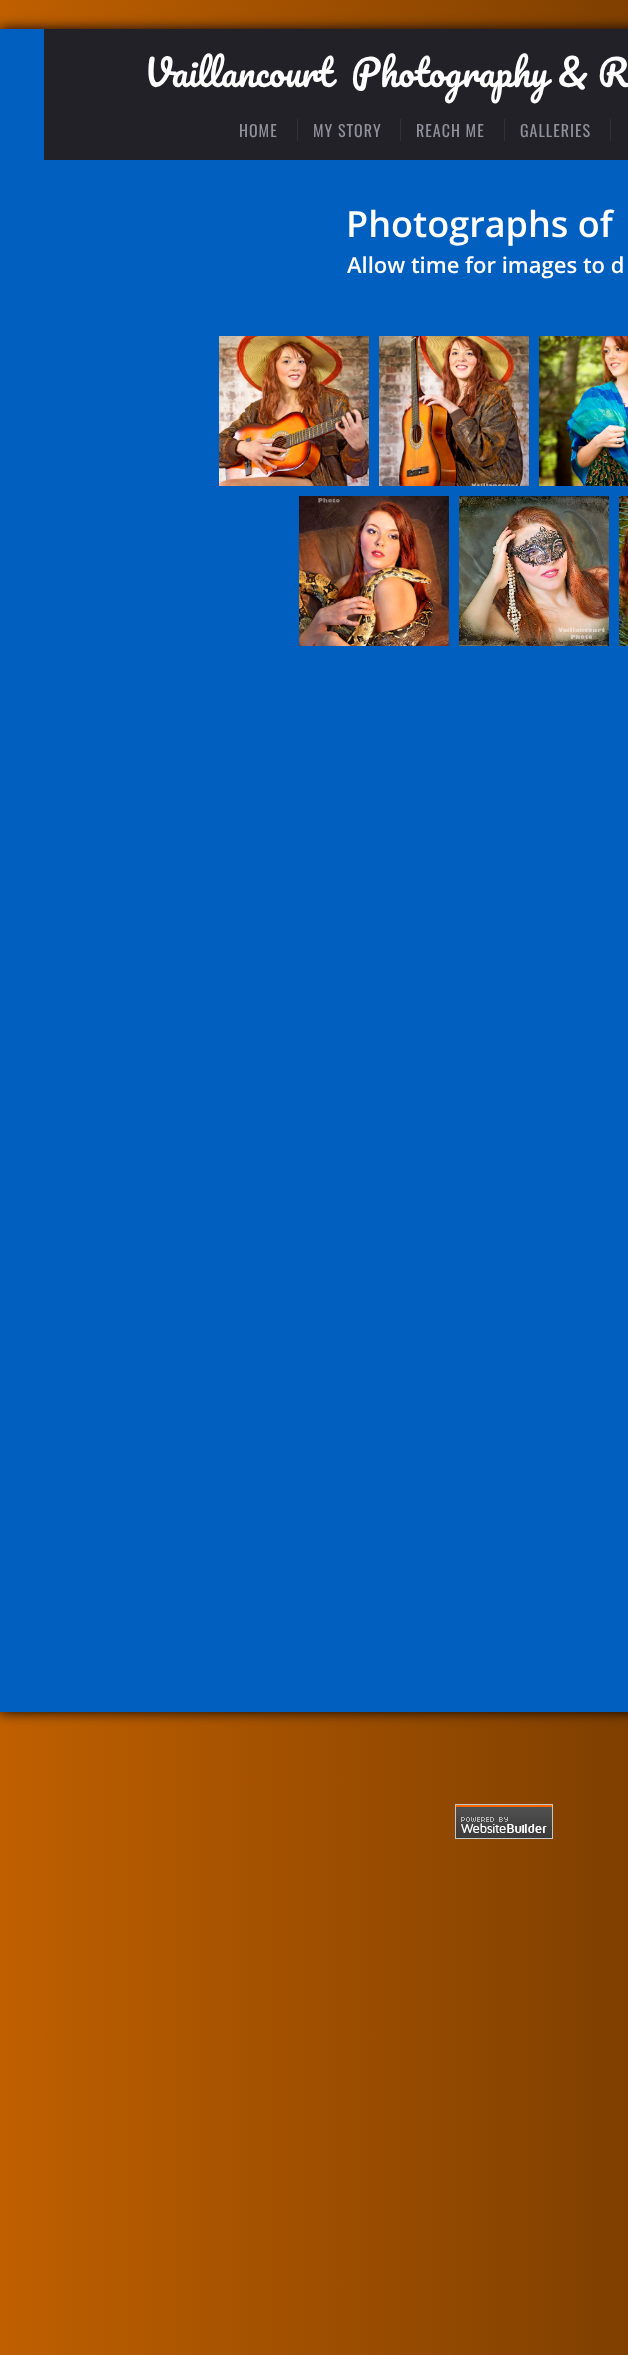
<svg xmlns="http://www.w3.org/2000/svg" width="628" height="2355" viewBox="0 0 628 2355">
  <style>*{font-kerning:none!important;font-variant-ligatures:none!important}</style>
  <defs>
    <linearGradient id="g1" gradientUnits="userSpaceOnUse" x1="0" y1="1178" x2="628" y2="1178"><stop offset="0" stop-color="#bf5f00"/><stop offset="1" stop-color="#7f3f00"/></linearGradient>
    <filter id="blur1" x="-50%" y="-200%" width="200%" height="500%"><feGaussianBlur stdDeviation="6.5"/></filter>
  </defs>
  <rect width="100%" height="100%" fill="#ffffff"/>
  <rect x="0" y="0" width="628" height="2355" fill="url(#g1)"/>
  <rect x="0" y="29" width="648" height="1683" fill="#000000" filter="url(#blur1)"/>
  <rect x="0" y="29" width="628" height="1683" fill="#005fbf"/>
  <rect x="44" y="29" width="584" height="131" fill="#212127"/>
  <text x="144" y="87" font-family="Pacifico" font-size="36" fill="#ffffff" xml:space="preserve">Vaillancourt  Photography &amp; R</text>
  <text x="239" y="137" font-family="Oswald" font-size="16" letter-spacing="1" fill="#91919b">HOME</text>
  <rect x="297" y="119" width="1" height="22" fill="#31313a"/>
  <text x="313" y="137" font-family="Oswald" font-size="16" letter-spacing="1" fill="#91919b">MY STORY</text>
  <rect x="400" y="119" width="1" height="22" fill="#31313a"/>
  <text x="416" y="137" font-family="Oswald" font-size="16" letter-spacing="1" fill="#91919b">REACH ME</text>
  <rect x="504" y="119" width="1" height="22" fill="#31313a"/>
  <text x="520" y="137" font-family="Oswald" font-size="16" letter-spacing="1" fill="#91919b">GALLERIES</text>
  <rect x="610" y="119" width="1" height="22" fill="#31313a"/>
  <text x="346" y="237" font-family="Open Sans" font-size="36" font-weight="600" fill="#ffffff">Photographs of</text>
  <text x="347" y="273" font-family="Open Sans" font-size="22" font-weight="600" fill="#ffffff">Allow time for images to d</text>
  <image x="219" y="336" width="150" height="150" href="img1.png"/>
  <image x="379" y="336" width="150" height="150" href="img2.png"/>
  <image x="539" y="336" width="89" height="150" href="img3.png"/>
  <image x="299" y="496" width="150" height="150" href="img4.png"/>
  <image x="459" y="496" width="150" height="150" href="img5.png"/>
  <image x="619" y="496" width="9" height="150" href="img6.png"/>
  <image x="455" y="1804" width="98" height="35" href="img7.png"/>
</svg>
